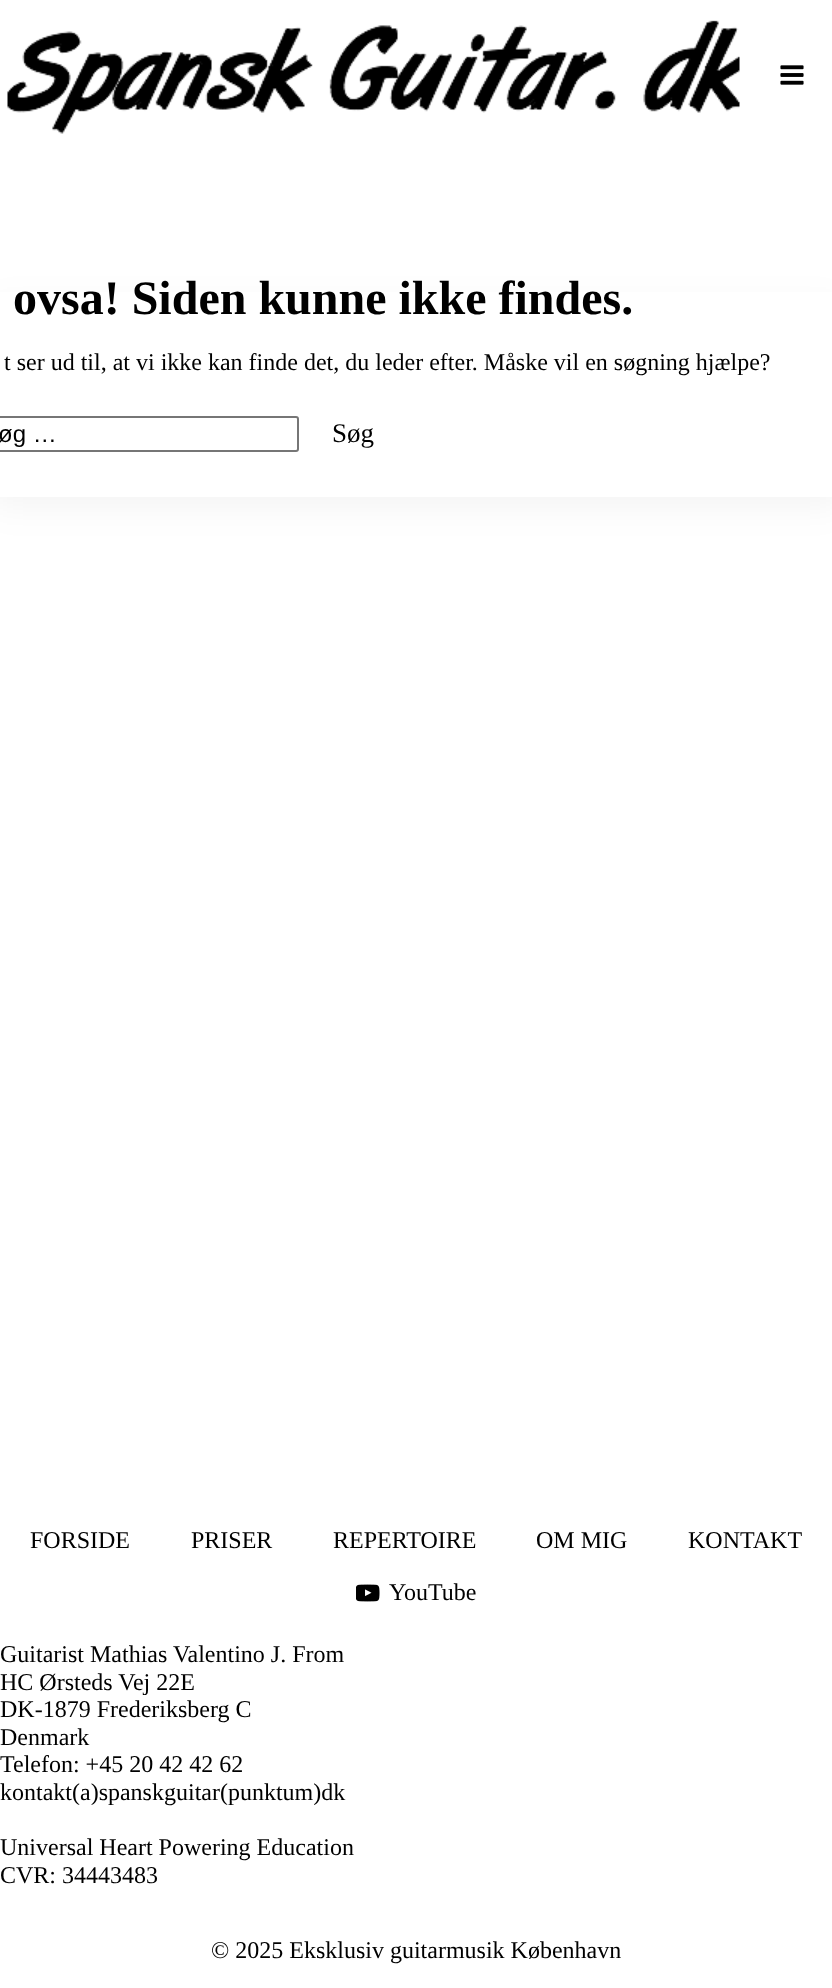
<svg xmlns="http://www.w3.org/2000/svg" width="832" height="1988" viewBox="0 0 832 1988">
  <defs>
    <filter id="blur1" x="-50%" y="-200%" width="200%" height="500%"><feGaussianBlur stdDeviation="19"/></filter>
  </defs>
  <rect width="100%" height="100%" fill="#ffffff"/>
  <image x="7" y="20" width="733" height="114" href="img1.png"/>
  <image x="780" y="65" width="24" height="20" href="img2.png"/>
  <rect x="-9" y="308" width="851" height="196" fill="#000000" fill-opacity="0.05" filter="url(#blur1)"/>
  <rect x="0" y="292" width="832" height="205" fill="#ffffff"/>
  <text x="13" y="314" font-family="Liberation Serif" font-size="48" font-weight="bold" fill="#000000">ovsa! Siden kunne ikke findes.</text>
  <text x="4" y="370" font-family="Liberation Serif" font-size="24" fill="#000000">t ser ud til, at vi ikke kan finde det, du leder efter. Måske vil en søgning hjælpe?</text>
  <rect x="-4" y="417" width="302" height="34" rx="2" fill="none" stroke="#767676" stroke-width="2"/>
  <text x="-2" y="442" font-family="Liberation Sans" font-size="24" fill="#000000">øg …</text>
  <text x="332" y="442" font-family="Liberation Serif" font-size="27" fill="#000000">Søg</text>
  <text x="30" y="1548" font-family="Liberation Serif" font-size="24" fill="#000000">FORSIDE</text>
  <text x="191" y="1548" font-family="Liberation Serif" font-size="24" fill="#000000">PRISER</text>
  <text x="333" y="1548" font-family="Liberation Serif" font-size="24" fill="#000000">REPERTOIRE</text>
  <text x="536" y="1548" font-family="Liberation Serif" font-size="24" fill="#000000">OM MIG</text>
  <text x="688" y="1548" font-family="Liberation Serif" font-size="24" fill="#000000">KONTAKT</text>
  <image x="356" y="1584" width="24" height="18" href="img3.png"/>
  <text x="389" y="1600" font-family="Liberation Serif" font-size="24" fill="#000000">YouTube</text>
  <text x="0" y="1662" font-family="Liberation Serif" font-size="24" fill="#000000">Guitarist Mathias Valentino J. From</text>
  <text x="0" y="1690" font-family="Liberation Serif" font-size="24" fill="#000000">HC Ørsteds Vej 22E</text>
  <text x="0" y="1717" font-family="Liberation Serif" font-size="24" fill="#000000">DK-1879 Frederiksberg C</text>
  <text x="0" y="1745" font-family="Liberation Serif" font-size="24" fill="#000000">Denmark</text>
  <text x="0" y="1772" font-family="Liberation Serif" font-size="24" fill="#000000">Telefon: +45 20 42 42 62</text>
  <text x="0" y="1800" font-family="Liberation Serif" font-size="24" fill="#000000">kontakt(a)spanskguitar(punktum)dk</text>
  <text x="0" y="1855" font-family="Liberation Serif" font-size="24" fill="#000000">Universal Heart Powering Education</text>
  <text x="0" y="1883" font-family="Liberation Serif" font-size="24" fill="#000000">CVR: 34443483</text>
  <text x="211" y="1958" font-family="Liberation Serif" font-size="24" fill="#000000">© 2025 Eksklusiv guitarmusik København</text>
</svg>
